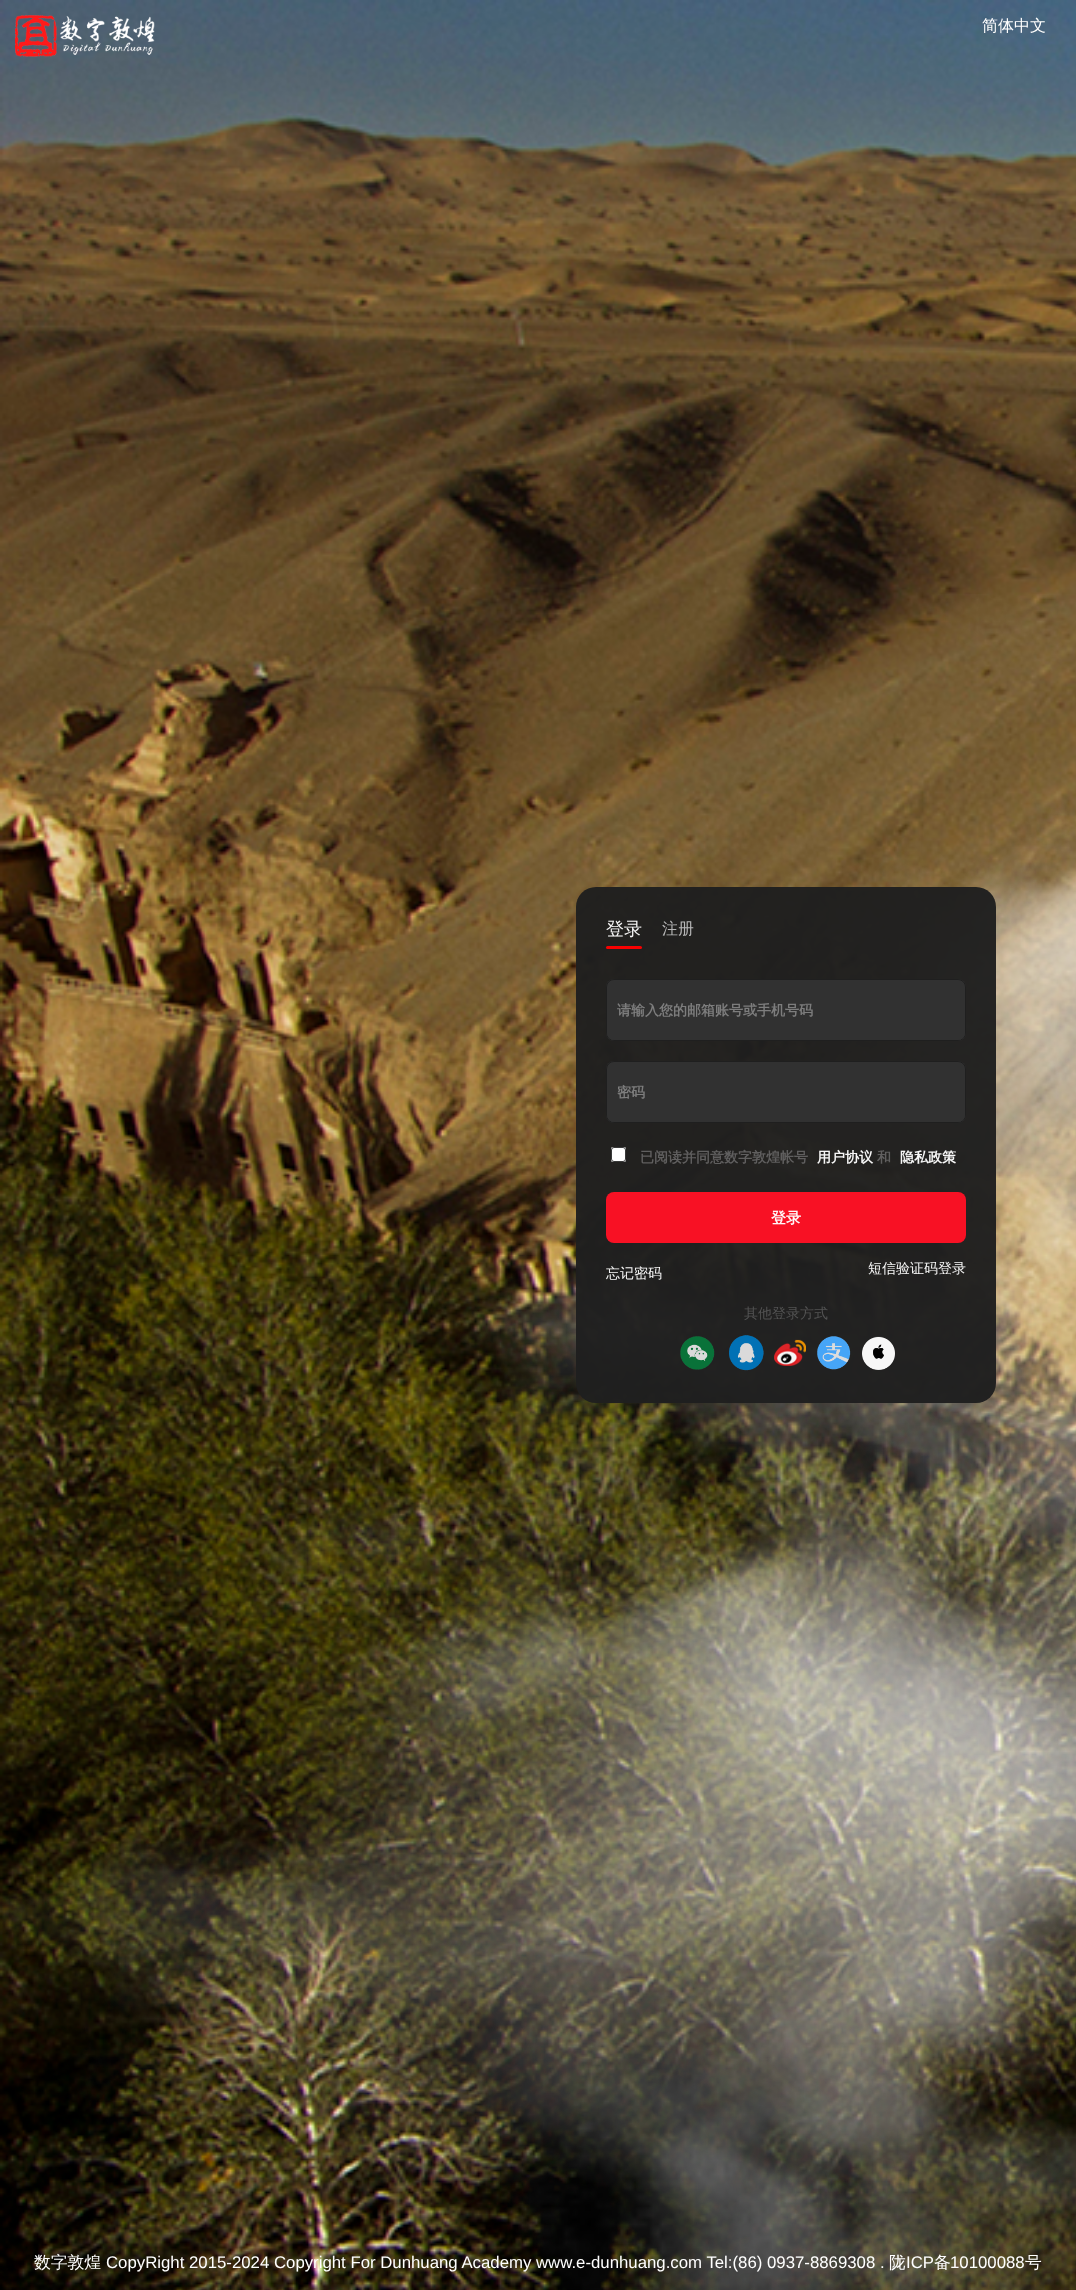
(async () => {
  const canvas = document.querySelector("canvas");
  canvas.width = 1076;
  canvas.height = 2290;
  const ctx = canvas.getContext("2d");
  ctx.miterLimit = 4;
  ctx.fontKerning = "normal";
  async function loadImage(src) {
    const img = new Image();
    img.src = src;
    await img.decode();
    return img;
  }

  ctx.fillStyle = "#ffffff";
  ctx.fillRect(0, 0, 1076, 2290);
  ctx.drawImage(await loadImage("img/2.png"), 0, 0, 1076, 2290);
  ctx.drawImage(await loadImage("img/1.png"), 15, 15, 140, 42);
  ctx.font = "500 16px WenQuanYi Zen Hei";
  ctx.fillText("简体中文", 982, 31);
  ctx.font = "500 16.8px WenQuanYi Zen Hei";
  ctx.fillText("数字敦煌", 34, 2268);
  ctx.font = "16.8px Liberation Sans";
  ctx.fillText("CopyRight 2015-2024 Copyright For Dunhuang Academy", 106, 2268);
  ctx.fillText("www.e-dunhuang.com Tel:(86) 0937-8869308 .", 536, 2268);
  ctx.font = "500 16.8px WenQuanYi Zen Hei";
  ctx.fillText("陇", 889, 2268);
  ctx.font = "16.8px Liberation Sans";
  ctx.fillText("ICP", 906, 2268);
  ctx.font = "500 16.8px WenQuanYi Zen Hei";
  ctx.fillText("备", 934, 2268);
  ctx.font = "16.8px Liberation Sans";
  ctx.fillText("10100088", 950, 2268);
  ctx.font = "500 16.8px WenQuanYi Zen Hei";
  ctx.fillText("号", 1025, 2268);
  ctx.drawImage(await loadImage("img/3.png"), 0, 594, 1076, 1696);
  ctx.fillStyle = "rgba(31, 31, 31, 0.97)";
  ctx.beginPath();
  ctx.roundRect(576, 887, 420, 516, 20);
  ctx.fill();
  ctx.fillStyle = "#f7f7f7";
  ctx.beginPath();
  ctx.roundRect(611, 1147, 15, 15, 2);
  ctx.fill();
  ctx.beginPath();
  ctx.roundRect(611.5, 1147.5, 14, 14, 1.5);
  ctx.strokeStyle = "rgba(118, 118, 118, 0.97)";
  ctx.stroke();
  ctx.fillStyle = "rgba(255, 255, 255, 0.97)";
  ctx.beginPath();
  ctx.roundRect(611, 1147, 15, 15, 3);
  ctx.fill();
  ctx.beginPath();
  ctx.roundRect(611.5, 1147.5, 14, 14, 2.5);
  ctx.strokeStyle = "rgba(51, 51, 51, 0.97)";
  ctx.stroke();
  ctx.fillStyle = "rgba(50, 50, 50, 0.97)";
  ctx.beginPath();
  ctx.roundRect(606, 1061, 360, 62, 8);
  ctx.fill();
  ctx.beginPath();
  ctx.roundRect(606.5, 1061.5, 359, 61, 7.5);
  ctx.strokeStyle = "rgba(31, 31, 31, 0.97)";
  ctx.stroke();
  ctx.beginPath();
  ctx.roundRect(607, 1082, 358, 40, [0, 0, 7, 7]);
  ctx.fill();
  ctx.font = "bold 14px WenQuanYi Zen Hei";
  ctx.fillStyle = "#7d7d7d";
  ctx.fillText("密码", 617, 1097);
  ctx.save();
  ctx.beginPath();
  ctx.roundRect(607, 1062, 358, 60, 7);
  ctx.clip();
  ctx.fillStyle = "rgba(50, 50, 50, 0.97)";
  ctx.fillRect(607, 1120, 358, 2);
  ctx.restore();
  ctx.fillStyle = "rgba(50, 50, 50, 0.97)";
  ctx.beginPath();
  ctx.roundRect(606, 979, 360, 62, 8);
  ctx.fill();
  ctx.beginPath();
  ctx.roundRect(606.5, 979.5, 359, 61, 7.5);
  ctx.stroke();
  ctx.beginPath();
  ctx.roundRect(607, 1000, 358, 40, [0, 0, 7, 7]);
  ctx.fill();
  ctx.fillStyle = "#7d7d7d";
  ctx.fillText("请输入您的邮箱账号或手机号码", 617, 1015);
  ctx.save();
  ctx.beginPath();
  ctx.roundRect(607, 980, 358, 60, 7);
  ctx.clip();
  ctx.fillStyle = "rgba(50, 50, 50, 0.97)";
  ctx.fillRect(607, 1038, 358, 2);
  ctx.restore();
  ctx.drawImage(await loadImage("img/8.png"), 862, 1336, 33, 34);
  ctx.drawImage(await loadImage("img/7.png"), 817, 1336, 34, 34);
  ctx.drawImage(await loadImage("img/6.png"), 774, 1339, 32, 27);
  ctx.drawImage(await loadImage("img/5.png"), 729, 1335, 35, 36);
  ctx.drawImage(await loadImage("img/4.png"), 680, 1336, 35, 34);
  ctx.font = "500 14px WenQuanYi Zen Hei";
  ctx.fillStyle = "#535353";
  ctx.fillText("其他登录方式", 744, 1318);
  ctx.fillStyle = "#f7f7f7";
  ctx.fillText("短信验证码登录", 868, 1273);
  ctx.fillText("忘记密码", 606, 1278);
  ctx.fillStyle = "rgba(255, 17, 36, 0.97)";
  ctx.beginPath();
  ctx.roundRect(606, 1192, 360, 51, 8);
  ctx.fill();
  ctx.font = "bold 15px WenQuanYi Zen Hei";
  ctx.fillStyle = "#fff7f8";
  ctx.fillText("登录", 771, 1223);
  ctx.font = "bold 14px WenQuanYi Zen Hei";
  ctx.fillStyle = "#f7f7f7";
  ctx.fillText("隐私政策", 900, 1162);
  ctx.fillStyle = "#605f5f";
  ctx.fillText("和", 877, 1162);
  ctx.fillStyle = "#f7f7f7";
  ctx.fillText("用户协议", 817, 1162);
  ctx.fillStyle = "#605f5f";
  ctx.fillText("已阅读并同意数字敦煌帐号", 640, 1162);
  ctx.font = "500 16px WenQuanYi Zen Hei";
  ctx.fillStyle = "#b6b6b6";
  ctx.fillText("注册", 662, 934);
  ctx.font = "500 18px WenQuanYi Zen Hei";
  ctx.fillStyle = "#f7f7f7";
  ctx.fillText("登录", 606, 935);
  ctx.fillStyle = "#f70101";
  ctx.beginPath();
  ctx.roundRect(606, 946, 36, 3, 1.5);
  ctx.fill();
})();
